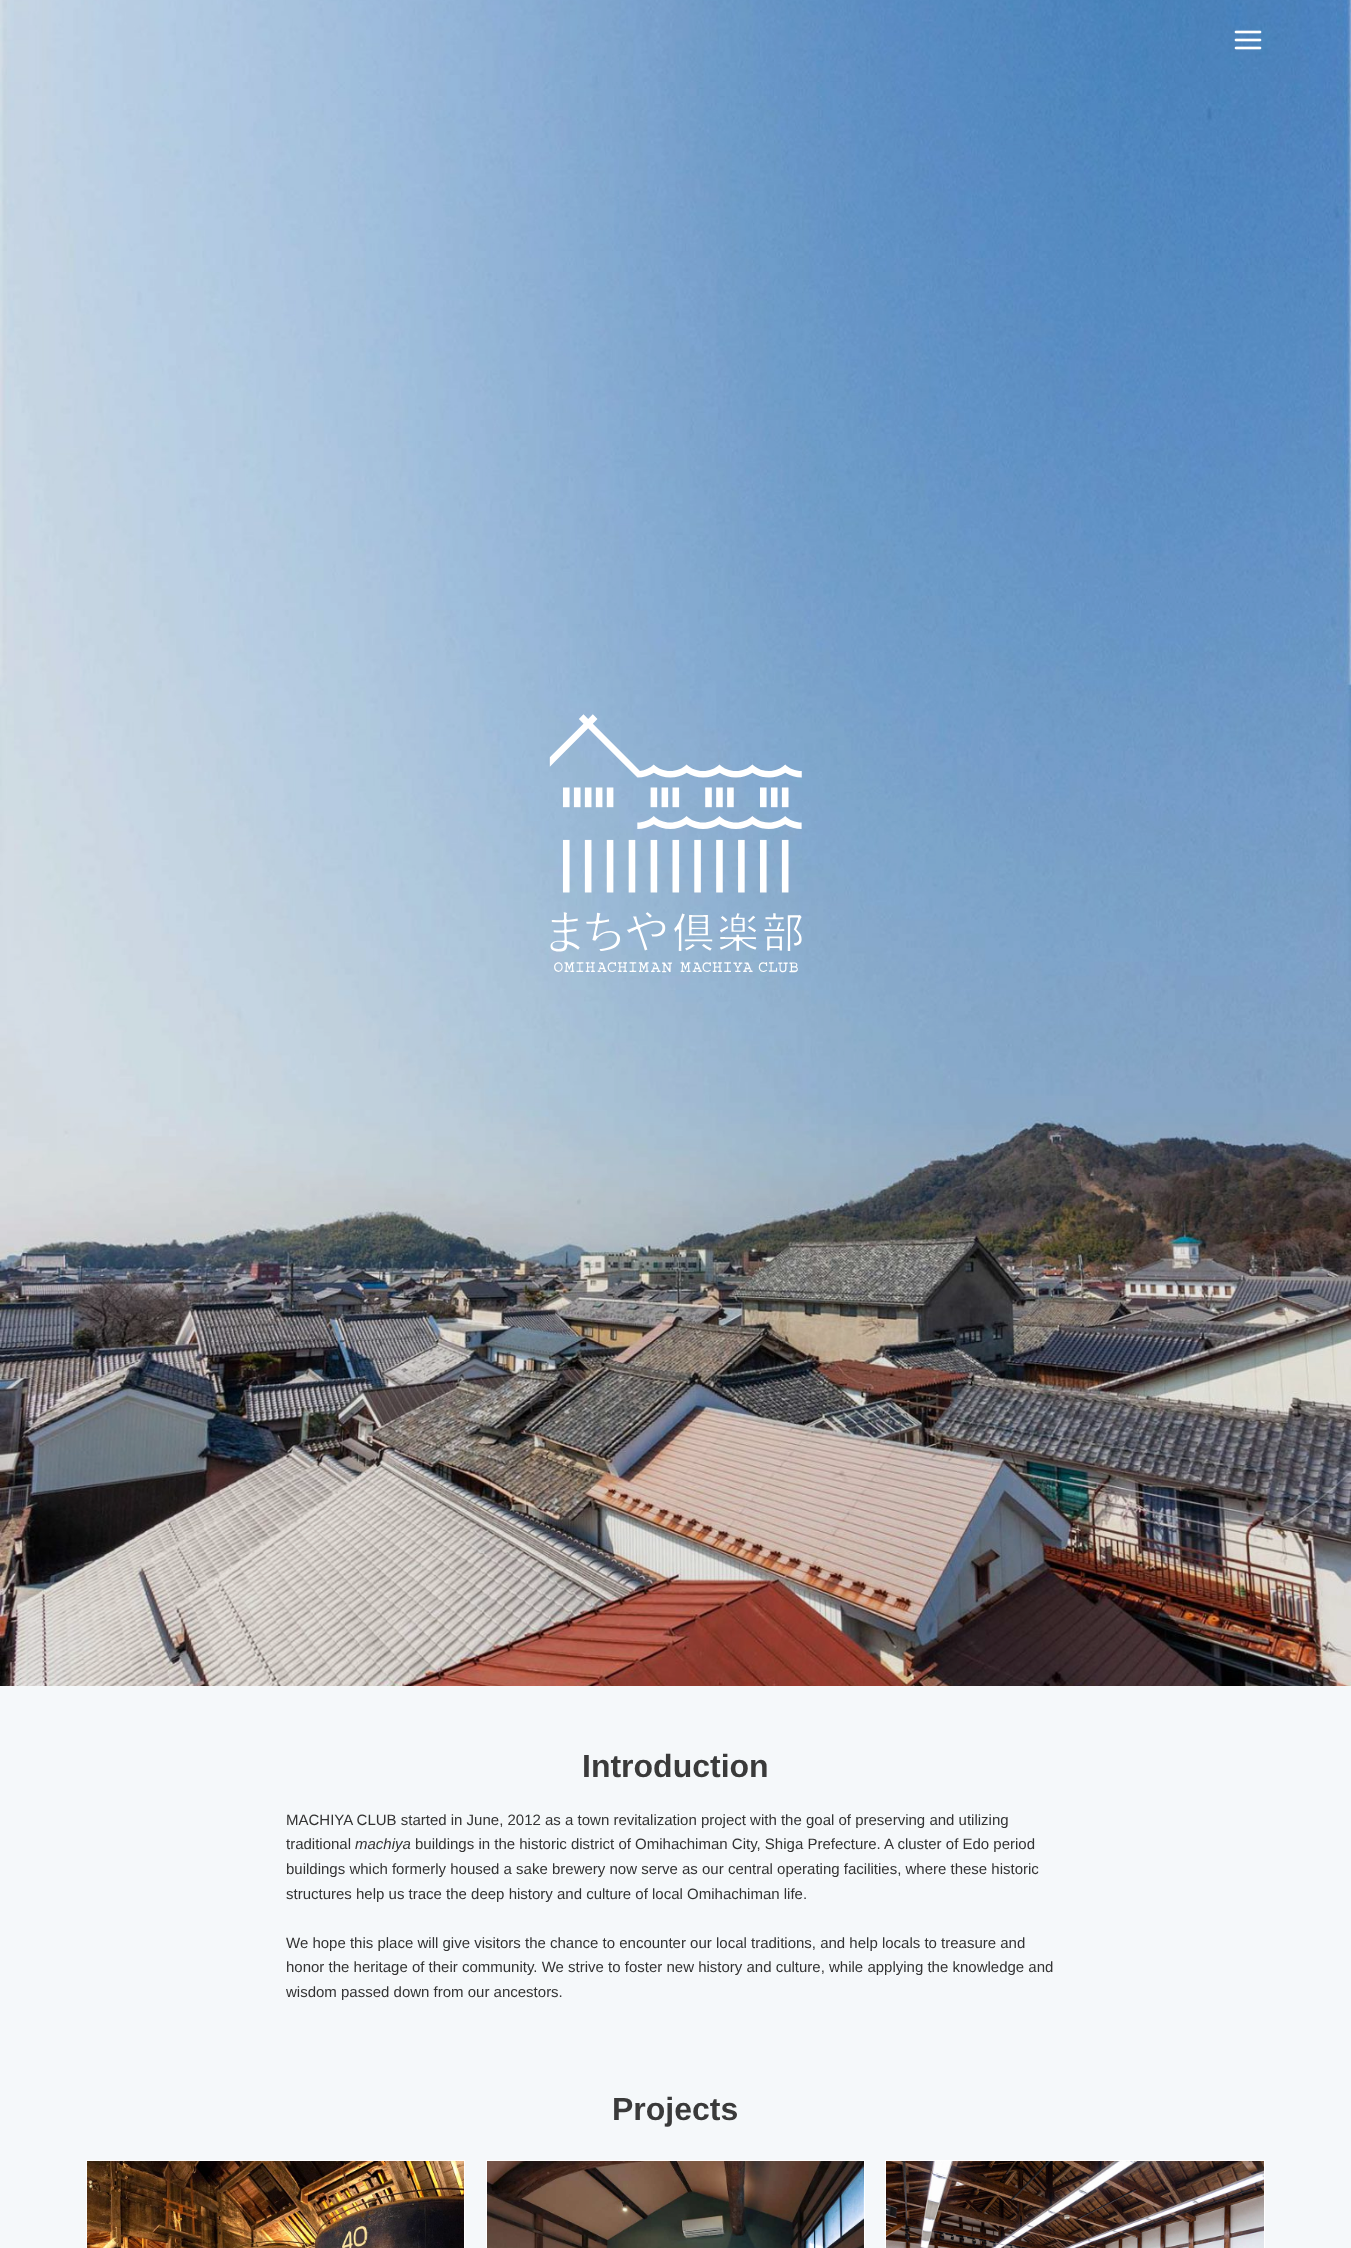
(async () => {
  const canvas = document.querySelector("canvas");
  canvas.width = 1351;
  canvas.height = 2248;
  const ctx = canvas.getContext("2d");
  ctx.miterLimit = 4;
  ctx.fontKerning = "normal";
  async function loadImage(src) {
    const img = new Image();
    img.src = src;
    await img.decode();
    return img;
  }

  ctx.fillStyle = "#f5f8fa";
  ctx.fillRect(0, 0, 1351, 2248);
  ctx.drawImage(await loadImage("img/2.png"), 0, 0, 1351, 1686);
  ctx.drawImage(await loadImage("img/1.png"), 1234, 30, 28, 20);
  ctx.drawImage(await loadImage("img/3.png"), 549, 714, 253, 259);
  ctx.strokeStyle = "#ffffff";
  ctx.strokeRect(86.5, 2160.5, 378, 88);
  ctx.drawImage(await loadImage("img/4.png"), 87, 2161, 377, 87);
  ctx.strokeRect(486.5, 2160.5, 378, 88);
  ctx.drawImage(await loadImage("img/5.png"), 487, 2161, 377, 87);
  ctx.strokeRect(885.5, 2160.5, 379, 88);
  ctx.drawImage(await loadImage("img/6.png"), 886, 2161, 378, 87);
  ctx.font = "bold 32px Liberation Sans";
  ctx.fillStyle = "#3a3a3a";
  ctx.fillText("Introduction", 582, 1777);
  ctx.font = "15px Liberation Sans";
  ctx.fillStyle = "#333333";
  ctx.fillText("MACHIYA CLUB started in June, 2012 as a town revitalization project with the goal of preserving and utilizing", 286, 1825);
  ctx.fillText("traditional", 286, 1849);
  ctx.font = "italic 15px Liberation Sans";
  ctx.fillText("machiya", 355, 1849);
  ctx.font = "15px Liberation Sans";
  for (const [text, x, y] of [
    ["buildings in the historic district of Omihachiman City, Shiga Prefecture. A cluster of Edo period", 415, 1849],
    ["buildings which formerly housed a sake brewery now serve as our central operating facilities, where these historic", 286, 1874],
    ["structures help us trace the deep history and culture of local Omihachiman life.", 286, 1899],
    ["We hope this place will give visitors the chance to encounter our local traditions, and help locals to treasure and", 286, 1948],
    ["honor the heritage of their community. We strive to foster new history and culture, while applying the knowledge and", 286, 1972],
    ["wisdom passed down from our ancestors.", 286, 1997],
  ]) {
    ctx.fillText(text, x, y);
  }
  ctx.font = "bold 32px Liberation Sans";
  ctx.fillStyle = "#3a3a3a";
  ctx.fillText("Projects", 612, 2120);
})();
